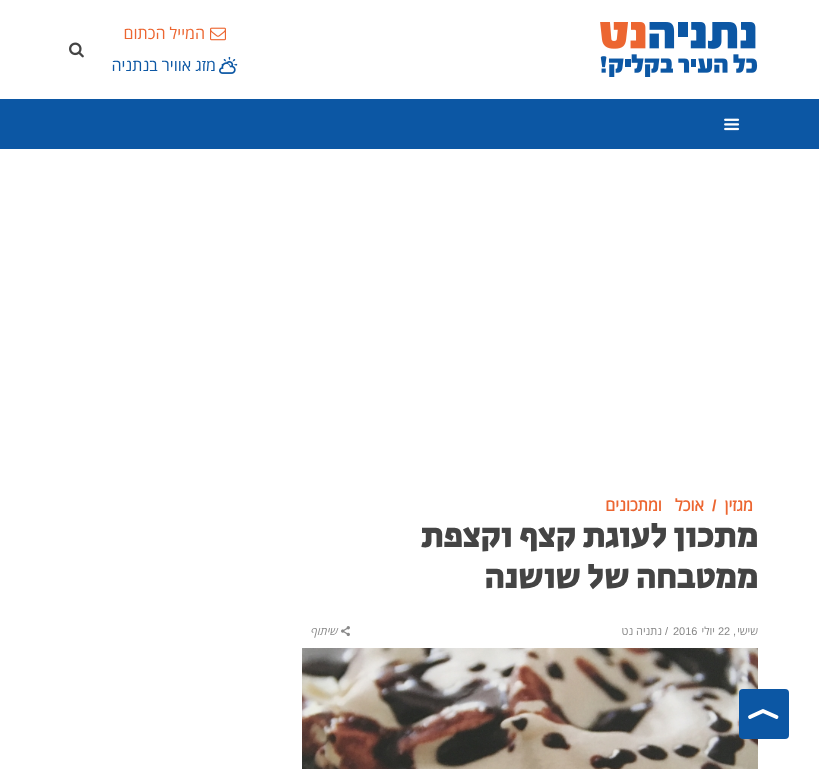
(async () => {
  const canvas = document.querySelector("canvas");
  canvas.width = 819;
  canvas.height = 769;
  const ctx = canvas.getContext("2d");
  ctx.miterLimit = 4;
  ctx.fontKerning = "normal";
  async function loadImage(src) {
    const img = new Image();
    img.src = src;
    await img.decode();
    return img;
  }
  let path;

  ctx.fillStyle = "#ffffff";
  ctx.fillRect(0, 0, 819, 769);
  ctx.drawImage(await loadImage("img/1.png"), 600, 22, 158, 55);
  ctx.drawImage(await loadImage("img/2.png"), 210, 27, 16, 14);
  ctx.drawImage(await loadImage("img/3.png"), 219, 56, 19, 18);
  ctx.drawImage(await loadImage("img/4.png"), 69, 42, 15, 16);
  ctx.fillStyle = "#0c57a4";
  ctx.fillRect(0, 99, 819, 50);
  ctx.drawImage(await loadImage("img/5.png"), 724, 118, 16, 13);
  ctx.drawImage(await loadImage("img/6.png"), 341, 626, 9, 11);
  ctx.drawImage(await loadImage("img/7.png"), 302, 648, 456, 121);
  ctx.beginPath();
  ctx.roundRect(739, 689, 50, 50, 4);
  ctx.fill();
  path = new Path2D("M776.5 717L763 711L750 717");
  ctx.strokeStyle = "#ffffff";
  ctx.lineWidth = 3.8;
  ctx.lineCap = "round";
  ctx.lineJoin = "round";
  ctx.stroke(path);
  ctx.direction = "rtl";
  ctx.font = "16px Open Sans";
  ctx.fillStyle = "#ec6631";
  ctx.fillText("המייל הכתום", 205, 39);
  ctx.fillStyle = "#0c57a4";
  ctx.fillText("מזג אוויר בנתניה", 216, 71);
  ctx.font = "bold 16px Open Sans";
  ctx.fillStyle = "#ec6631";
  ctx.fillText("מגזין", 753, 511);
  ctx.direction = "ltr";
  ctx.font = "bold 16px Liberation Sans";
  ctx.fillText("/", 712, 511);
  ctx.wordSpacing = "9px";
  ctx.direction = "rtl";
  ctx.font = "bold 16px Open Sans";
  ctx.fillText("אוכל ומתכונים", 704, 511);
  ctx.wordSpacing = "0px";
  ctx.font = "bold 34.25px Secular One";
  ctx.fillStyle = "#444444";
  ctx.fillText("מתכון לעוגת קצף וקצפת", 758, 547);
  ctx.fillText("ממטבחה של שושנה", 758, 588);
  ctx.font = "11px Open Sans";
  ctx.fillStyle = "#888888";
  ctx.fillText("שישי", 758, 635);
  ctx.font = "11px Liberation Sans";
  ctx.fillText(",", 736, 635);
  ctx.direction = "ltr";
  ctx.fillText("22", 718, 635);
  ctx.direction = "rtl";
  ctx.font = "11px Open Sans";
  ctx.fillText("יולי", 715, 635);
  ctx.direction = "ltr";
  ctx.font = "11px Liberation Sans";
  ctx.fillText("2016", 673, 635);
  ctx.fillText("/", 665, 635);
  ctx.direction = "rtl";
  ctx.font = "11px Open Sans";
  ctx.fillText("נתניה נט", 662, 635);
  ctx.font = "italic 11px Open Sans";
  ctx.fillText("שיתוף", 337, 635);
})();
